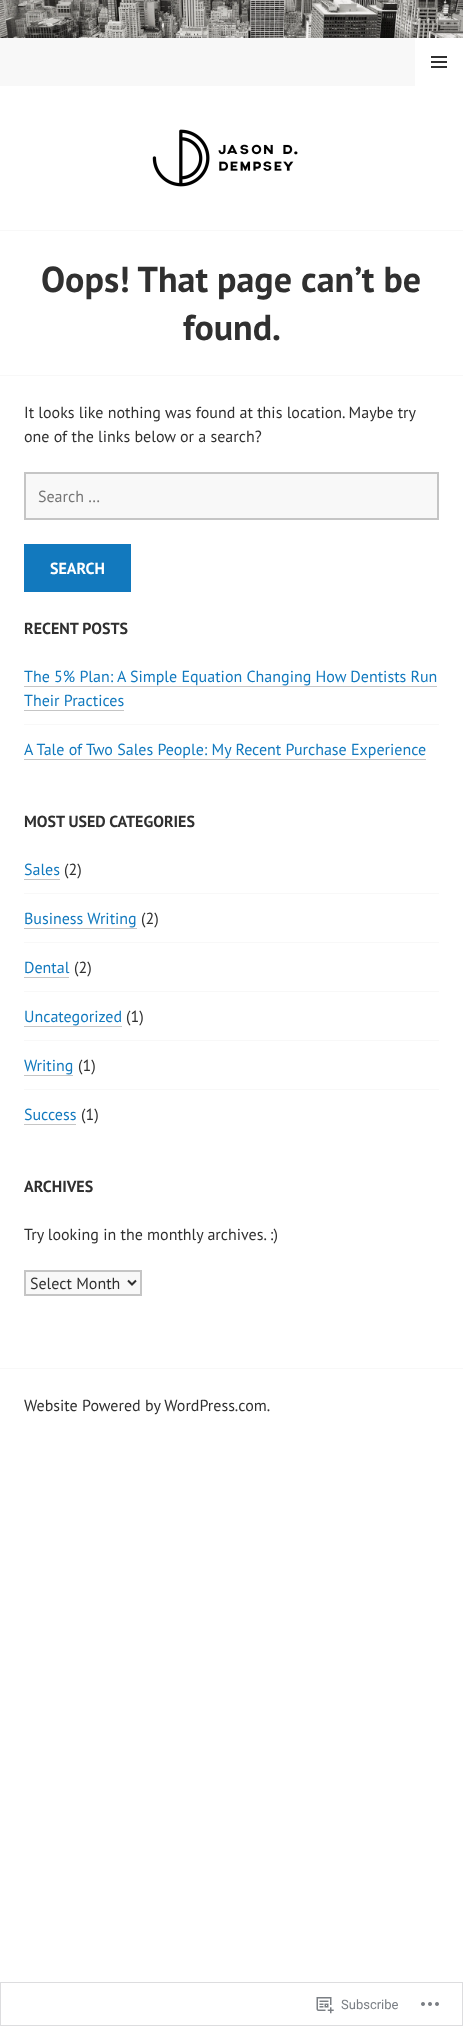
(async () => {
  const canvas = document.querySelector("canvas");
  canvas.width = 463;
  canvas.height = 2026;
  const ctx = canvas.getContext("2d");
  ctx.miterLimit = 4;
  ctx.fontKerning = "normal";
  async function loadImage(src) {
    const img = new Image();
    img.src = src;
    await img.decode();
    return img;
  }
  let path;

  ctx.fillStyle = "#ffffff";
  ctx.fillRect(0, 0, 463, 2026);
  ctx.fillStyle = "#f8f8f8";
  ctx.fillRect(0, 230, 463, 1);
  ctx.drawImage(await loadImage("img/1.png"), 0, 0, 463, 38);
  ctx.fillRect(0, 38, 415, 48);
  ctx.drawImage(await loadImage("img/2.png"), 431, 56, 16, 12);
  ctx.drawImage(await loadImage("img/3.png"), 152, 129, 146, 58);
  ctx.fillRect(0, 375, 463, 1);
  ctx.beginPath();
  ctx.rect(25, 473, 413, 46);
  ctx.fill();
  ctx.strokeStyle = "#c5c5c5";
  ctx.lineWidth = 2;
  ctx.stroke();
  for (const [x, y, w, h, color] of [
    [24, 544, 107, 48, "#1279be"],
    [24, 686, 413, 1, "#c5c5c5"],
    [24, 710, 100, 1, "#c5c5c5"],
    [24, 724, 415, 1, "#f8f8f8"],
    [24, 759, 402, 1, "#c5c5c5"],
    [24, 879, 36, 1, "#c5c5c5"],
    [24, 893, 415, 1, "#f8f8f8"],
    [24, 928, 113, 1, "#c5c5c5"],
    [24, 942, 415, 1, "#f8f8f8"],
    [24, 977, 45, 1, "#c5c5c5"],
    [24, 991, 415, 1, "#f8f8f8"],
    [24, 1026, 98, 1, "#c5c5c5"],
    [24, 1040, 415, 1, "#f8f8f8"],
    [24, 1075, 49, 1, "#c5c5c5"],
    [24, 1089, 415, 1, "#f8f8f8"],
    [24, 1124, 52, 1, "#c5c5c5"],
  ]) {
    ctx.fillStyle = color;
    ctx.fillRect(x, y, w, h);
  }
  ctx.fillStyle = "#f8f8f8";
  ctx.beginPath();
  ctx.rect(25, 1271, 116, 24);
  ctx.fill();
  ctx.stroke();
  path = new Path2D("M128 1280.5L132 1284.5L136 1280.5");
  ctx.strokeStyle = "#303030";
  ctx.stroke(path);
  ctx.fillRect(0, 1368, 463, 1);
  ctx.strokeStyle = "#dddddf";
  ctx.lineWidth = 1;
  ctx.strokeRect(0.5, 1982.5, 462, 43);
  ctx.drawImage(await loadImage("img/4.png"), 316, 1997, 18, 17);
  ctx.drawImage(await loadImage("img/5.png"), 421, 2002, 18, 4);
  ctx.font = "bold 36px PT Sans";
  ctx.fillStyle = "#303030";
  ctx.fillText("Oops! That page can’t be", 41, 292);
  ctx.fillText("found.", 183, 340);
  ctx.font = "16px PT Sans";
  ctx.fillText("It looks like nothing was found at this location. Maybe try", 24, 418);
  ctx.fillText("one of the links below or a search?", 24, 442);
  ctx.fillStyle = "#757575";
  ctx.fillText("Search …", 38, 502);
  ctx.font = "bold 16px PT Sans";
  ctx.fillStyle = "#ffffff";
  ctx.fillText("SEARCH", 50, 574);
  ctx.fillStyle = "#303030";
  ctx.fillText("RECENT POSTS", 24, 634);
  ctx.font = "16px PT Sans";
  ctx.fillStyle = "#1279be";
  for (const [text, x, y] of [
    ["The 5% Plan: A Simple Equation Changing How Dentists Run", 24, 682],
    ["Their Practices", 24, 706],
    ["A Tale of Two Sales People: My Recent Purchase Experience", 24, 755],
  ]) {
    ctx.fillText(text, x, y);
  }
  ctx.font = "bold 16px PT Sans";
  ctx.fillStyle = "#303030";
  ctx.fillText("MOST USED CATEGORIES", 24, 827);
  ctx.font = "16px PT Sans";
  ctx.fillStyle = "#1279be";
  ctx.fillText("Sales", 24, 875);
  ctx.fillStyle = "#303030";
  ctx.fillText("(2)", 64, 875);
  ctx.fillStyle = "#1279be";
  ctx.fillText("Business Writing", 24, 924);
  ctx.fillStyle = "#303030";
  ctx.fillText("(2)", 141, 924);
  ctx.fillStyle = "#1279be";
  ctx.fillText("Dental", 24, 973);
  ctx.fillStyle = "#303030";
  ctx.fillText("(2)", 74, 973);
  ctx.fillStyle = "#1279be";
  ctx.fillText("Uncategorized", 24, 1022);
  ctx.fillStyle = "#303030";
  ctx.fillText("(1)", 126, 1022);
  ctx.fillStyle = "#1279be";
  ctx.fillText("Writing", 24, 1071);
  ctx.fillStyle = "#303030";
  ctx.fillText("(1)", 78, 1071);
  ctx.fillStyle = "#1279be";
  ctx.fillText("Success", 24, 1120);
  ctx.fillStyle = "#303030";
  ctx.fillText("(1)", 81, 1120);
  ctx.font = "bold 16px PT Sans";
  ctx.fillText("ARCHIVES", 24, 1192);
  ctx.font = "16px PT Sans";
  for (const [text, x, y] of [
    ["Try looking in the monthly archives. :)", 24, 1240],
    ["Select Month", 30, 1289],
    ["Website Powered by WordPress.com.", 24, 1411],
  ]) {
    ctx.fillText(text, x, y);
  }
  ctx.font = "13px Roboto";
  ctx.fillStyle = "#7b7f85";
  ctx.fillText("Subscribe", 341, 2009);
})();
